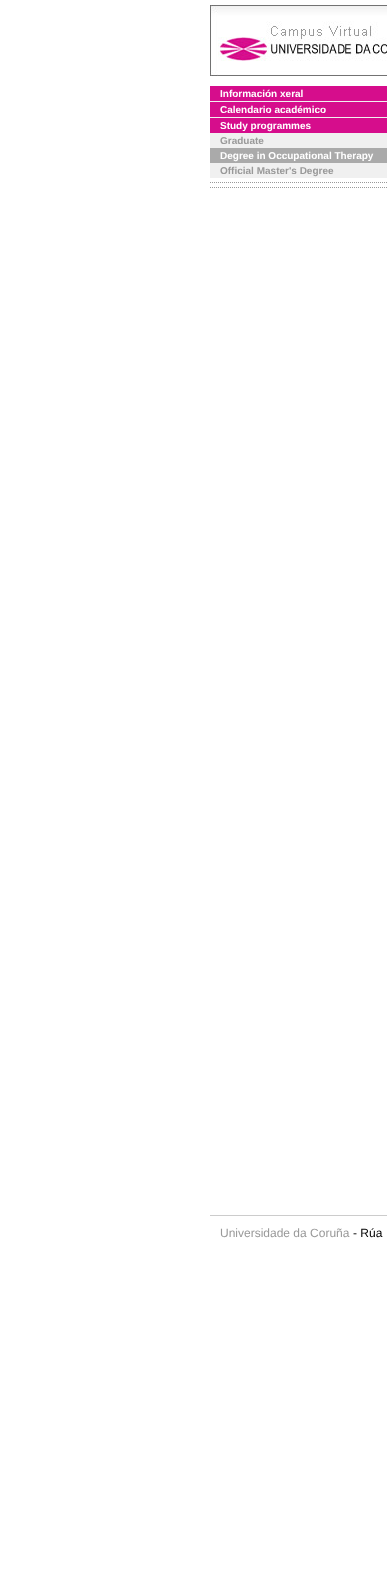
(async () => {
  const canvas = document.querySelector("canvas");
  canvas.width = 387;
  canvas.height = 1595;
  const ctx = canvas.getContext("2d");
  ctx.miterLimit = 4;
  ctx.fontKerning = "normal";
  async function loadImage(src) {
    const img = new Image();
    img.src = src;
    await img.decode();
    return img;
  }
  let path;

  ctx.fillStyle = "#ffffff";
  ctx.fillRect(0, 0, 387, 1595);
  ctx.drawImage(await loadImage("img/1.png"), 210, 5, 177, 71);
  for (const [x, y, w, h, color] of [
    [210, 101, 177, 77, "#f0f0f0"],
    [210, 86, 177, 15, "#d60d8c"],
    [210, 102, 177, 15, "#d60d8c"],
    [210, 118, 177, 15, "#d60d8c"],
    [210, 148, 177, 15, "#aaaaaa"],
  ]) {
    ctx.fillStyle = color;
    ctx.fillRect(x, y, w, h);
  }
  path = new Path2D("M210 182.5H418");
  ctx.strokeStyle = "#999999";
  ctx.setLineDash([1, 1]);
  ctx.stroke(path);
  path = new Path2D("M210 187.5H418");
  ctx.stroke(path);
  ctx.fillStyle = "#cccccc";
  ctx.fillRect(210, 1215, 177, 1);
  ctx.font = "bold 10px Liberation Sans";
  ctx.fillStyle = "#ffffff";
  for (const [text, x, y] of [
    ["Información xeral", 220, 97],
    ["Calendario académico", 220, 113],
    ["Study programmes", 220, 129],
  ]) {
    ctx.fillText(text, x, y);
  }
  ctx.fillStyle = "#999999";
  ctx.fillText("Graduate", 220, 144);
  ctx.fillStyle = "#ffffff";
  ctx.fillText("Degree in Occupational Therapy", 220, 159);
  ctx.fillStyle = "#999999";
  ctx.fillText("Official Master's Degree", 220, 174);
  ctx.font = "12px Liberation Sans";
  ctx.fillText("Universidade da Coruña", 220, 1237);
  ctx.fillStyle = "#000000";
  ctx.fillText("- Rúa", 353, 1237);
})();
